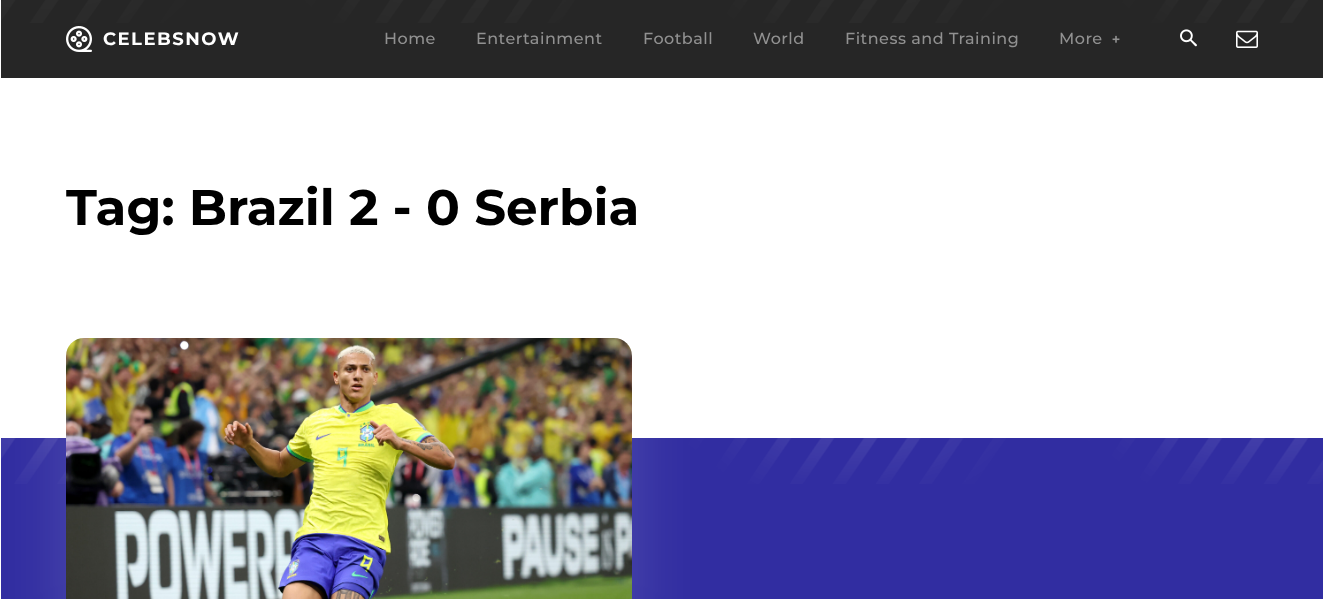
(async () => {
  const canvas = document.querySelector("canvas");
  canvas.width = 1323;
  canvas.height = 599;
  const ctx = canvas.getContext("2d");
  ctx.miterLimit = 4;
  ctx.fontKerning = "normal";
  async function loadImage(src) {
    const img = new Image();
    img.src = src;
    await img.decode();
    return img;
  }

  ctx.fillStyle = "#ffffff";
  ctx.fillRect(0, 0, 1323, 599);
  ctx.fillStyle = "#262626";
  ctx.fillRect(1, 0, 1322, 78);
  ctx.drawImage(await loadImage("img/1.png"), 1, 0, 1307, 23);
  ctx.drawImage(await loadImage("img/2.png"), 66, 26, 26, 26);
  ctx.drawImage(await loadImage("img/3.png"), 1112, 35, 8, 8);
  ctx.drawImage(await loadImage("img/4.png"), 1180, 29, 17, 18);
  ctx.drawImage(await loadImage("img/5.png"), 1236, 30, 22, 18);
  ctx.fillStyle = "#312da1";
  ctx.fillRect(1, 438, 1322, 161);
  ctx.drawImage(await loadImage("img/7.png"), 1, 438, 1322, 46);
  ctx.fillStyle = "rgba(255, 255, 255, 0.15)";
  ctx.filter = "blur(35px)";
  ctx.beginPath();
  ctx.roundRect(66, 338, 566, 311, 18);
  ctx.fill();
  ctx.filter = "none";
  ctx.drawImage(await loadImage("img/6.png"), 66, 338, 566, 261);
  ctx.letterSpacing = "1.5px";
  ctx.font = "bold 18px Montserrat";
  ctx.fillStyle = "#ffffff";
  ctx.fillText("CELEBSNOW", 103, 45);
  ctx.letterSpacing = "0.5px";
  ctx.font = "500 16px Montserrat";
  ctx.fillStyle = "#919191";
  for (const [text, x, y] of [
    ["Home", 384, 44],
    ["Entertainment", 476, 44],
    ["Football", 643, 44],
    ["World", 753, 44],
    ["Fitness and Training", 845, 44],
    ["More", 1059, 44],
  ]) {
    ctx.fillText(text, x, y);
  }
  ctx.letterSpacing = "0px";
  ctx.font = "bold 50px Montserrat";
  ctx.fillStyle = "#000000";
  ctx.fillText("Tag: Brazil 2 - 0 Serbia", 66, 225);
})();
